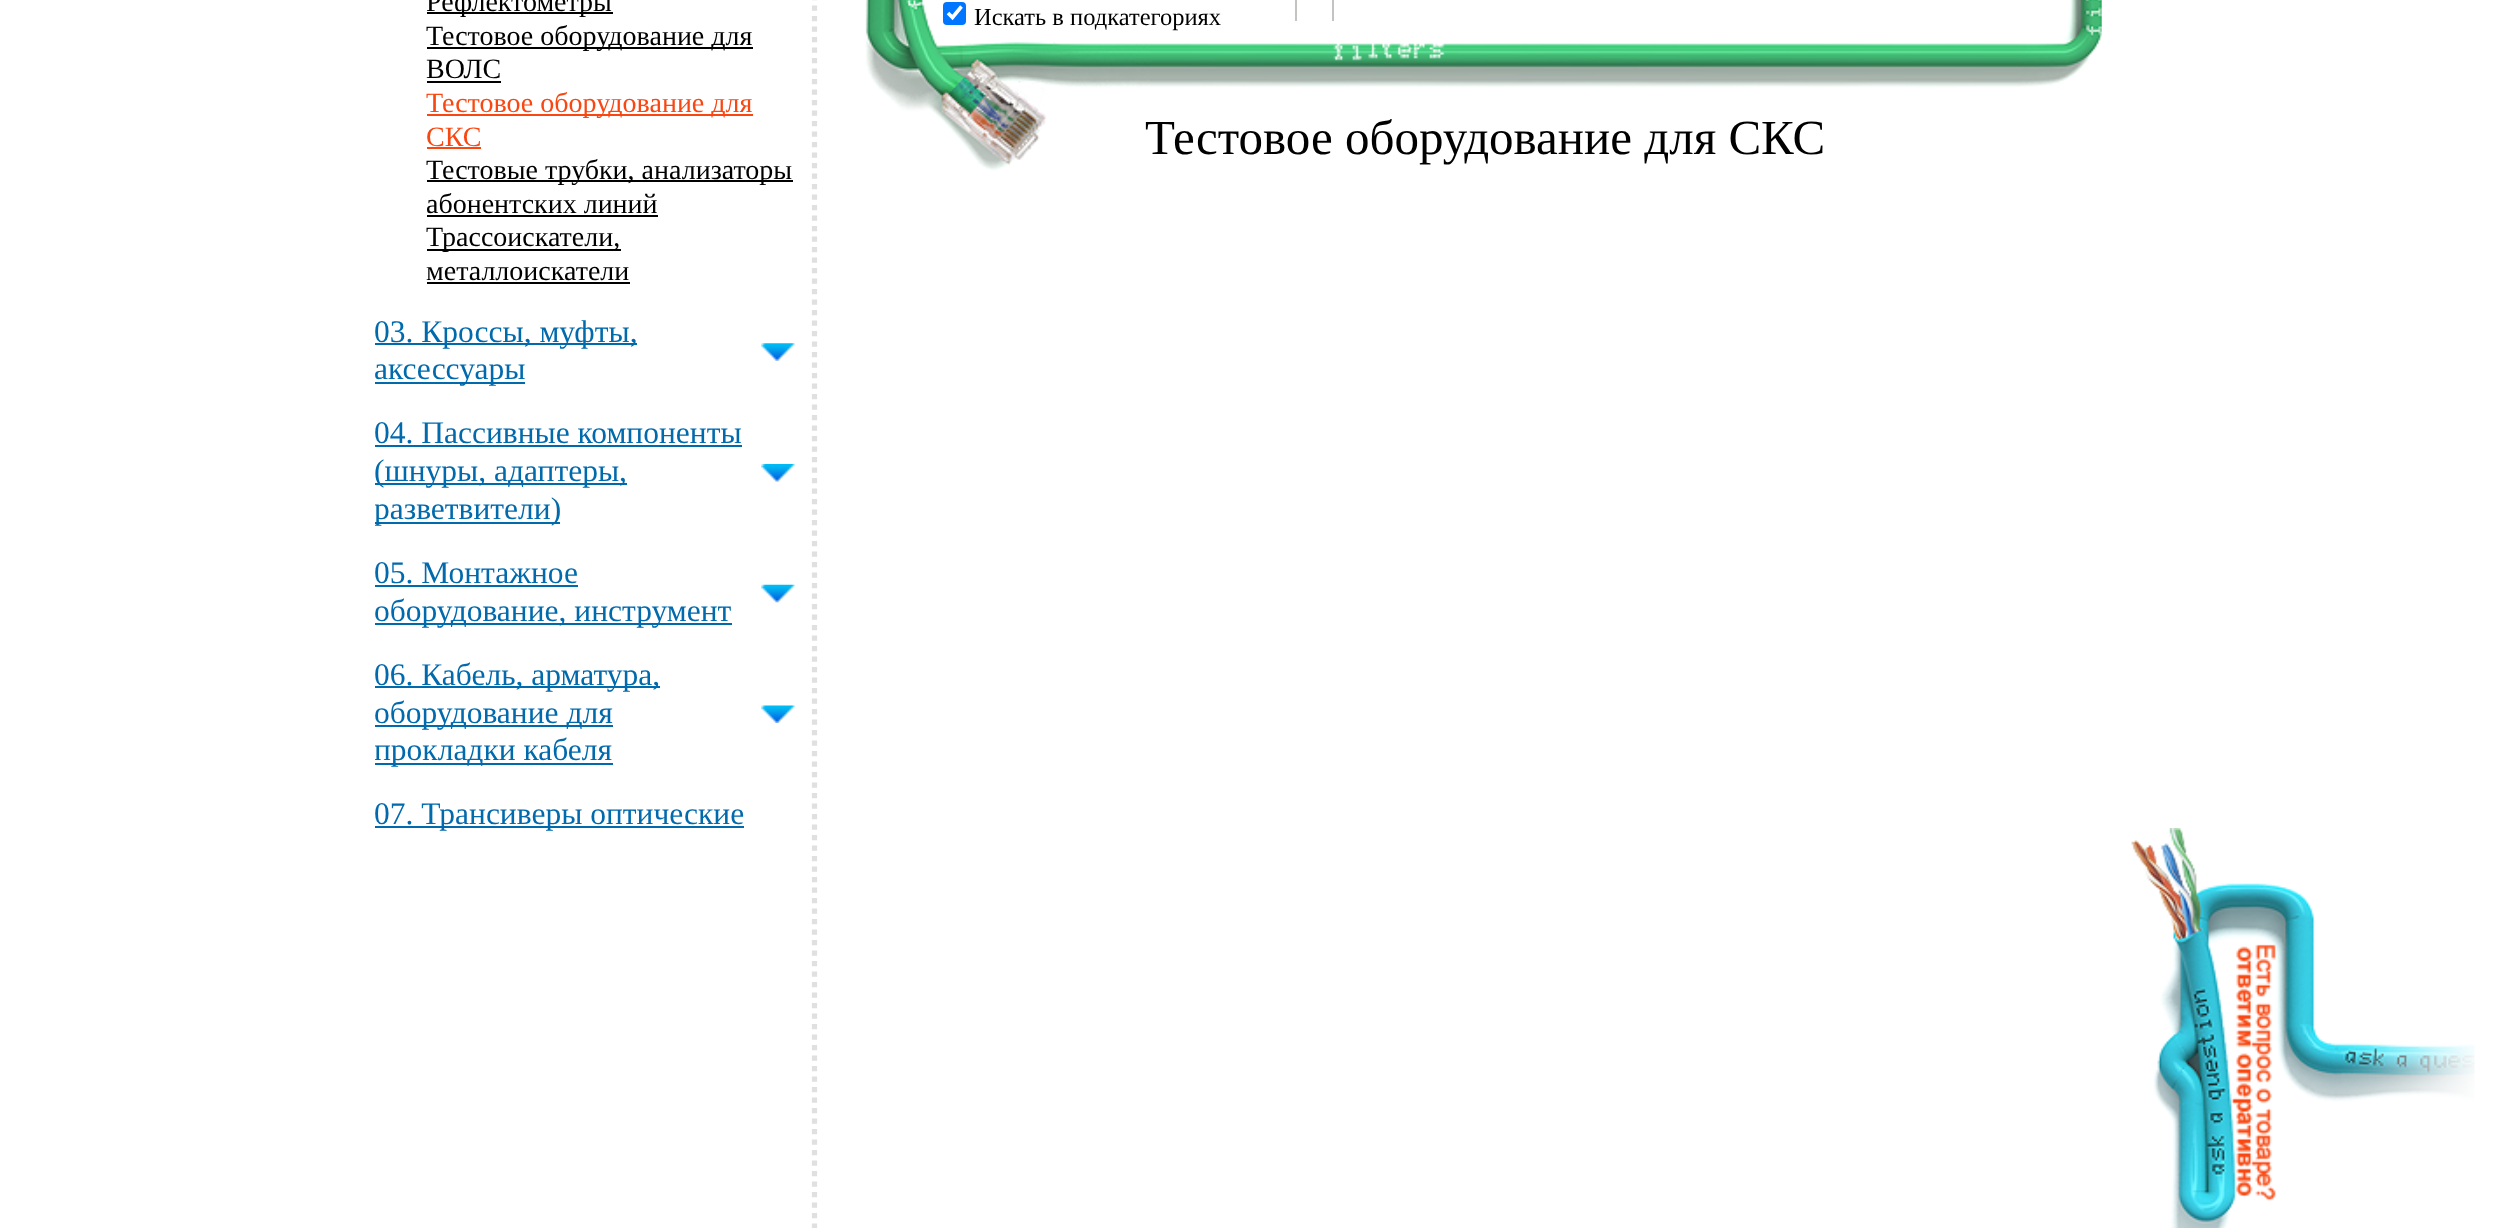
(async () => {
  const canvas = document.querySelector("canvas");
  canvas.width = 2496;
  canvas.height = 1228;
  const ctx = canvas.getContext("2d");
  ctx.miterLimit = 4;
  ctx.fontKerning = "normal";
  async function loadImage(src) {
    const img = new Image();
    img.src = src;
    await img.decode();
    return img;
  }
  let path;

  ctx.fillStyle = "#ffffff";
  ctx.fillRect(0, 0, 2496, 1228);
  path = new Path2D("M814.5-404V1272");
  ctx.strokeStyle = "#e0e0e0";
  ctx.lineWidth = 5.2;
  ctx.setLineDash([5.25, 5.25]);
  ctx.stroke(path);
  for (const [x, y, w, h, color] of [
    [427, 12, 186, 2, "#000000"],
    [427, 47, 326, 2, "#000000"],
    [427, 81, 74, 2, "#000000"],
    [427, 114, 326, 2, "#f94711"],
    [427, 147, 54, 2, "#f94711"],
    [427, 180, 366, 2, "#000000"],
    [427, 215, 231, 2, "#000000"],
    [427, 249, 194, 2, "#000000"],
    [427, 282, 203, 2, "#000000"],
    [375, 343, 262, 2, "#006aad"],
    [375, 382, 150, 2, "#006aad"],
  ]) {
    ctx.fillStyle = color;
    ctx.fillRect(x, y, w, h);
  }
  ctx.drawImage(await loadImage("img/1.png"), 761, 343, 34, 18);
  for (const [x, y, w, h, color] of [
    [375, 445, 367, 2, "#006aad"],
    [375, 483, 252, 2, "#006aad"],
    [375, 522, 185, 2, "#006aad"],
  ]) {
    ctx.fillStyle = color;
    ctx.fillRect(x, y, w, h);
  }
  ctx.drawImage(await loadImage("img/2.png"), 761, 464, 34, 18);
  ctx.fillRect(375, 585, 203, 2);
  ctx.fillRect(375, 623, 357, 2);
  ctx.drawImage(await loadImage("img/3.png"), 761, 584, 34, 19);
  for (const [x, y, w, h, color] of [
    [375, 686, 285, 2, "#006aad"],
    [375, 725, 238, 2, "#006aad"],
    [375, 763, 238, 2, "#006aad"],
  ]) {
    ctx.fillStyle = color;
    ctx.fillRect(x, y, w, h);
  }
  ctx.drawImage(await loadImage("img/4.png"), 761, 705, 34, 18);
  ctx.fillRect(375, 826, 369, 2);
  ctx.drawImage(await loadImage("img/5.png"), 865, 0, 1237, 171);
  ctx.fillStyle = "#0075ff";
  ctx.beginPath();
  ctx.roundRect(943, 2, 23, 23, 4);
  ctx.fill();
  path = new Path2D("M948 13L952.5 17.5L961.5 6.5");
  ctx.strokeStyle = "#ffffff";
  ctx.lineWidth = 3.6;
  ctx.setLineDash([]);
  ctx.stroke(path);
  ctx.fillStyle = "#c3c3c2";
  ctx.fillRect(1295, 0, 2, 21);
  ctx.fillRect(1332, 0, 2, 21);
  ctx.drawImage(await loadImage("img/6.png"), 2131, 828, 344, 400);
  ctx.font = "28px Liberation Serif";
  ctx.fillStyle = "#000000";
  for (const [text, x, y] of [
    ["Рефлектометры", 426, 11],
    ["Тестовое оборудование для", 426, 45],
    ["ВОЛС", 426, 78],
  ]) {
    ctx.fillText(text, x, y);
  }
  ctx.fillStyle = "#f94711";
  ctx.fillText("Тестовое оборудование для", 426, 112);
  ctx.fillText("СКС", 426, 146);
  ctx.fillStyle = "#000000";
  for (const [text, x, y] of [
    ["Тестовые трубки, анализаторы", 426, 179],
    ["абонентских линий", 426, 213],
    ["Трассоискатели,", 426, 246],
    ["металлоискатели", 426, 280],
  ]) {
    ctx.fillText(text, x, y);
  }
  ctx.save();
  ctx.beginPath();
  ctx.rect(375, 313, 437, 76);
  ctx.clip();
  ctx.font = "31.5px Liberation Serif";
  ctx.fillStyle = "#006aad";
  ctx.fillText("03. Кроссы, муфты,", 374, 342);
  ctx.fillText("аксессуары", 374, 379);
  ctx.restore();
  ctx.save();
  ctx.beginPath();
  ctx.rect(375, 415, 437, 114);
  ctx.clip();
  ctx.font = "31.5px Liberation Serif";
  ctx.fillStyle = "#006aad";
  ctx.fillText("04. Пассивные компоненты", 374, 443);
  ctx.restore();
  ctx.font = "31.5px Liberation Serif";
  ctx.fillStyle = "#006aad";
  ctx.fillText("(шнуры, адаптеры,", 374, 481);
  ctx.save();
  ctx.beginPath();
  ctx.rect(375, 415, 437, 114);
  ctx.clip();
  ctx.fillText("разветвители)", 374, 519);
  ctx.restore();
  ctx.save();
  ctx.beginPath();
  ctx.rect(375, 555, 437, 75);
  ctx.clip();
  ctx.fillText("05. Монтажное", 374, 583);
  ctx.fillText("оборудование, инструмент", 374, 621);
  ctx.restore();
  ctx.save();
  ctx.beginPath();
  ctx.rect(375, 656, 437, 114);
  ctx.clip();
  for (const [text, x, y] of [
    ["06. Кабель, арматура,", 374, 685],
    ["оборудование для", 374, 723],
    ["прокладки кабеля", 374, 760],
  ]) {
    ctx.fillText(text, x, y);
  }
  ctx.restore();
  ctx.save();
  ctx.beginPath();
  ctx.rect(375, 796, 437, 39);
  ctx.clip();
  ctx.fillText("07. Трансиверы оптические", 374, 824);
  ctx.restore();
  ctx.font = "24.5px Liberation Serif";
  ctx.fillStyle = "#000000";
  ctx.fillText("Искать в подкатегориях", 974, 25);
  ctx.font = "49px Liberation Serif";
  ctx.fillText("Тестовое оборудование для СКС", 1145, 154);
})();
